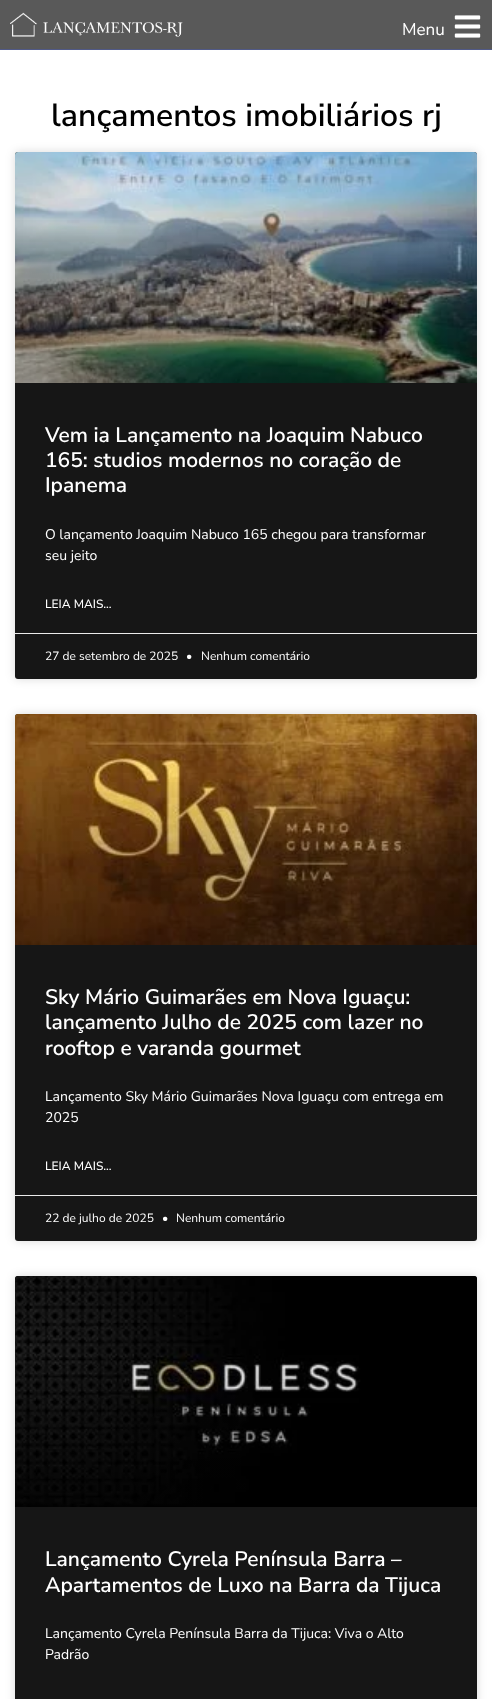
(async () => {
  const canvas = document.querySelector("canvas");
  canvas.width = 492;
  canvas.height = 1699;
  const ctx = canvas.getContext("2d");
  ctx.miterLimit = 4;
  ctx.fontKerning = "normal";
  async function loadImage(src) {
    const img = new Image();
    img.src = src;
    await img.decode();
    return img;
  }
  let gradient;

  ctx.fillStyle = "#ffffff";
  ctx.fillRect(0, 0, 492, 1699);
  ctx.fillStyle = "#595959";
  ctx.fillRect(0, 0, 492, 49);
  ctx.fillStyle = "#505987";
  ctx.fillRect(0, 49, 492, 1);
  ctx.drawImage(await loadImage("img/1.png"), 10, 12, 173, 25);
  ctx.drawImage(await loadImage("img/2.png"), 454, 15, 27, 23);
  ctx.fillStyle = "rgba(0, 0, 0, 0.15)";
  ctx.filter = "blur(5px)";
  ctx.beginPath();
  ctx.roundRect(15, 152, 462, 527, 3);
  ctx.fill();
  ctx.filter = "none";
  ctx.fillStyle = "#161616";
  ctx.beginPath();
  ctx.roundRect(15, 152, 462, 527, 3);
  ctx.fill();
  ctx.drawImage(await loadImage("img/3.png"), 15, 152, 462, 231);
  gradient = ctx.createLinearGradient(246, 383, 246, 152);
  gradient.addColorStop(0, "rgba(0, 0, 0, 0.35)");
  gradient.addColorStop(0.75, "rgba(0, 0, 0, 0)");
  ctx.fillStyle = gradient;
  ctx.fillRect(15, 220, 462, 163);
  ctx.fillStyle = "#eaeaea";
  ctx.fillRect(15, 633, 462, 1);
  ctx.fillStyle = "rgba(0, 0, 0, 0.15)";
  ctx.filter = "blur(5px)";
  ctx.beginPath();
  ctx.roundRect(15, 714, 462, 527, 3);
  ctx.fill();
  ctx.filter = "none";
  ctx.fillStyle = "#161616";
  ctx.beginPath();
  ctx.roundRect(15, 714, 462, 527, 3);
  ctx.fill();
  ctx.drawImage(await loadImage("img/4.png"), 15, 714, 462, 231);
  gradient = ctx.createLinearGradient(246, 945, 246, 714);
  gradient.addColorStop(0, "rgba(0, 0, 0, 0.35)");
  gradient.addColorStop(0.75, "rgba(0, 0, 0, 0)");
  ctx.fillStyle = gradient;
  ctx.fillRect(15, 782, 462, 163);
  ctx.fillStyle = "#eaeaea";
  ctx.fillRect(15, 1195, 462, 1);
  ctx.fillStyle = "rgba(0, 0, 0, 0.15)";
  ctx.filter = "blur(5px)";
  ctx.beginPath();
  ctx.roundRect(15, 1276, 462, 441, 3);
  ctx.fill();
  ctx.filter = "none";
  ctx.fillStyle = "#161616";
  ctx.beginPath();
  ctx.roundRect(15, 1276, 462, 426, 3);
  ctx.fill();
  ctx.drawImage(await loadImage("img/5.png"), 15, 1276, 462, 231);
  gradient = ctx.createLinearGradient(246, 1507, 246, 1276);
  gradient.addColorStop(0, "rgba(0, 0, 0, 0.35)");
  gradient.addColorStop(0.75, "rgba(0, 0, 0, 0)");
  ctx.fillStyle = gradient;
  ctx.fillRect(15, 1364, 342, 142);
  ctx.font = "17px Nunito Sans";
  ctx.fillStyle = "#ffffff";
  ctx.fillText("Menu", 402, 35);
  ctx.font = "600 32px Nunito Sans";
  ctx.fillStyle = "#000000";
  ctx.fillText("lançamentos imobiliários rj", 51, 126);
  ctx.font = "600 21px Nunito Sans";
  ctx.fillStyle = "#ffffff";
  for (const [text, x, y] of [
    ["Vem ia Lançamento na Joaquim Nabuco", 45, 442],
    ["165: studios modernos no coração de", 45, 467],
    ["Ipanema", 45, 492],
  ]) {
    ctx.fillText(text, x, y);
  }
  ctx.font = "14px Nunito Sans";
  ctx.fillText("O lançamento Joaquim Nabuco 165 chegou para transformar", 45, 539);
  ctx.fillText("seu jeito", 45, 560);
  ctx.font = "500 12px Nunito Sans";
  ctx.fillText("LEIA MAIS...", 45, 608);
  ctx.font = "12px Nunito Sans";
  for (const [text, x, y] of [
    ["27 de setembro de 2025", 45, 660],
    ["•", 186, 660],
    ["Nenhum comentário", 201, 660],
  ]) {
    ctx.fillText(text, x, y);
  }
  ctx.font = "600 21px Nunito Sans";
  for (const [text, x, y] of [
    ["Sky Mário Guimarães em Nova Iguaçu:", 45, 1004],
    ["lançamento Julho de 2025 com lazer no", 45, 1029],
    ["rooftop e varanda gourmet", 45, 1055],
  ]) {
    ctx.fillText(text, x, y);
  }
  ctx.font = "14px Nunito Sans";
  ctx.fillText("Lançamento Sky Mário Guimarães Nova Iguaçu com entrega em", 45, 1101);
  ctx.fillText("2025", 45, 1122);
  ctx.font = "500 12px Nunito Sans";
  ctx.fillText("LEIA MAIS...", 45, 1170);
  ctx.font = "12px Nunito Sans";
  for (const [text, x, y] of [
    ["22 de julho de 2025", 45, 1222],
    ["•", 162, 1222],
    ["Nenhum comentário", 176, 1222],
  ]) {
    ctx.fillText(text, x, y);
  }
  ctx.font = "600 21px Nunito Sans";
  ctx.fillText("Lançamento Cyrela Península Barra –", 45, 1566);
  ctx.fillText("Apartamentos de Luxo na Barra da Tijuca", 45, 1592);
  ctx.font = "14px Nunito Sans";
  ctx.fillText("Lançamento Cyrela Península Barra da Tijuca: Viva o Alto", 45, 1638);
  ctx.fillText("Padrão", 45, 1659);
})();
